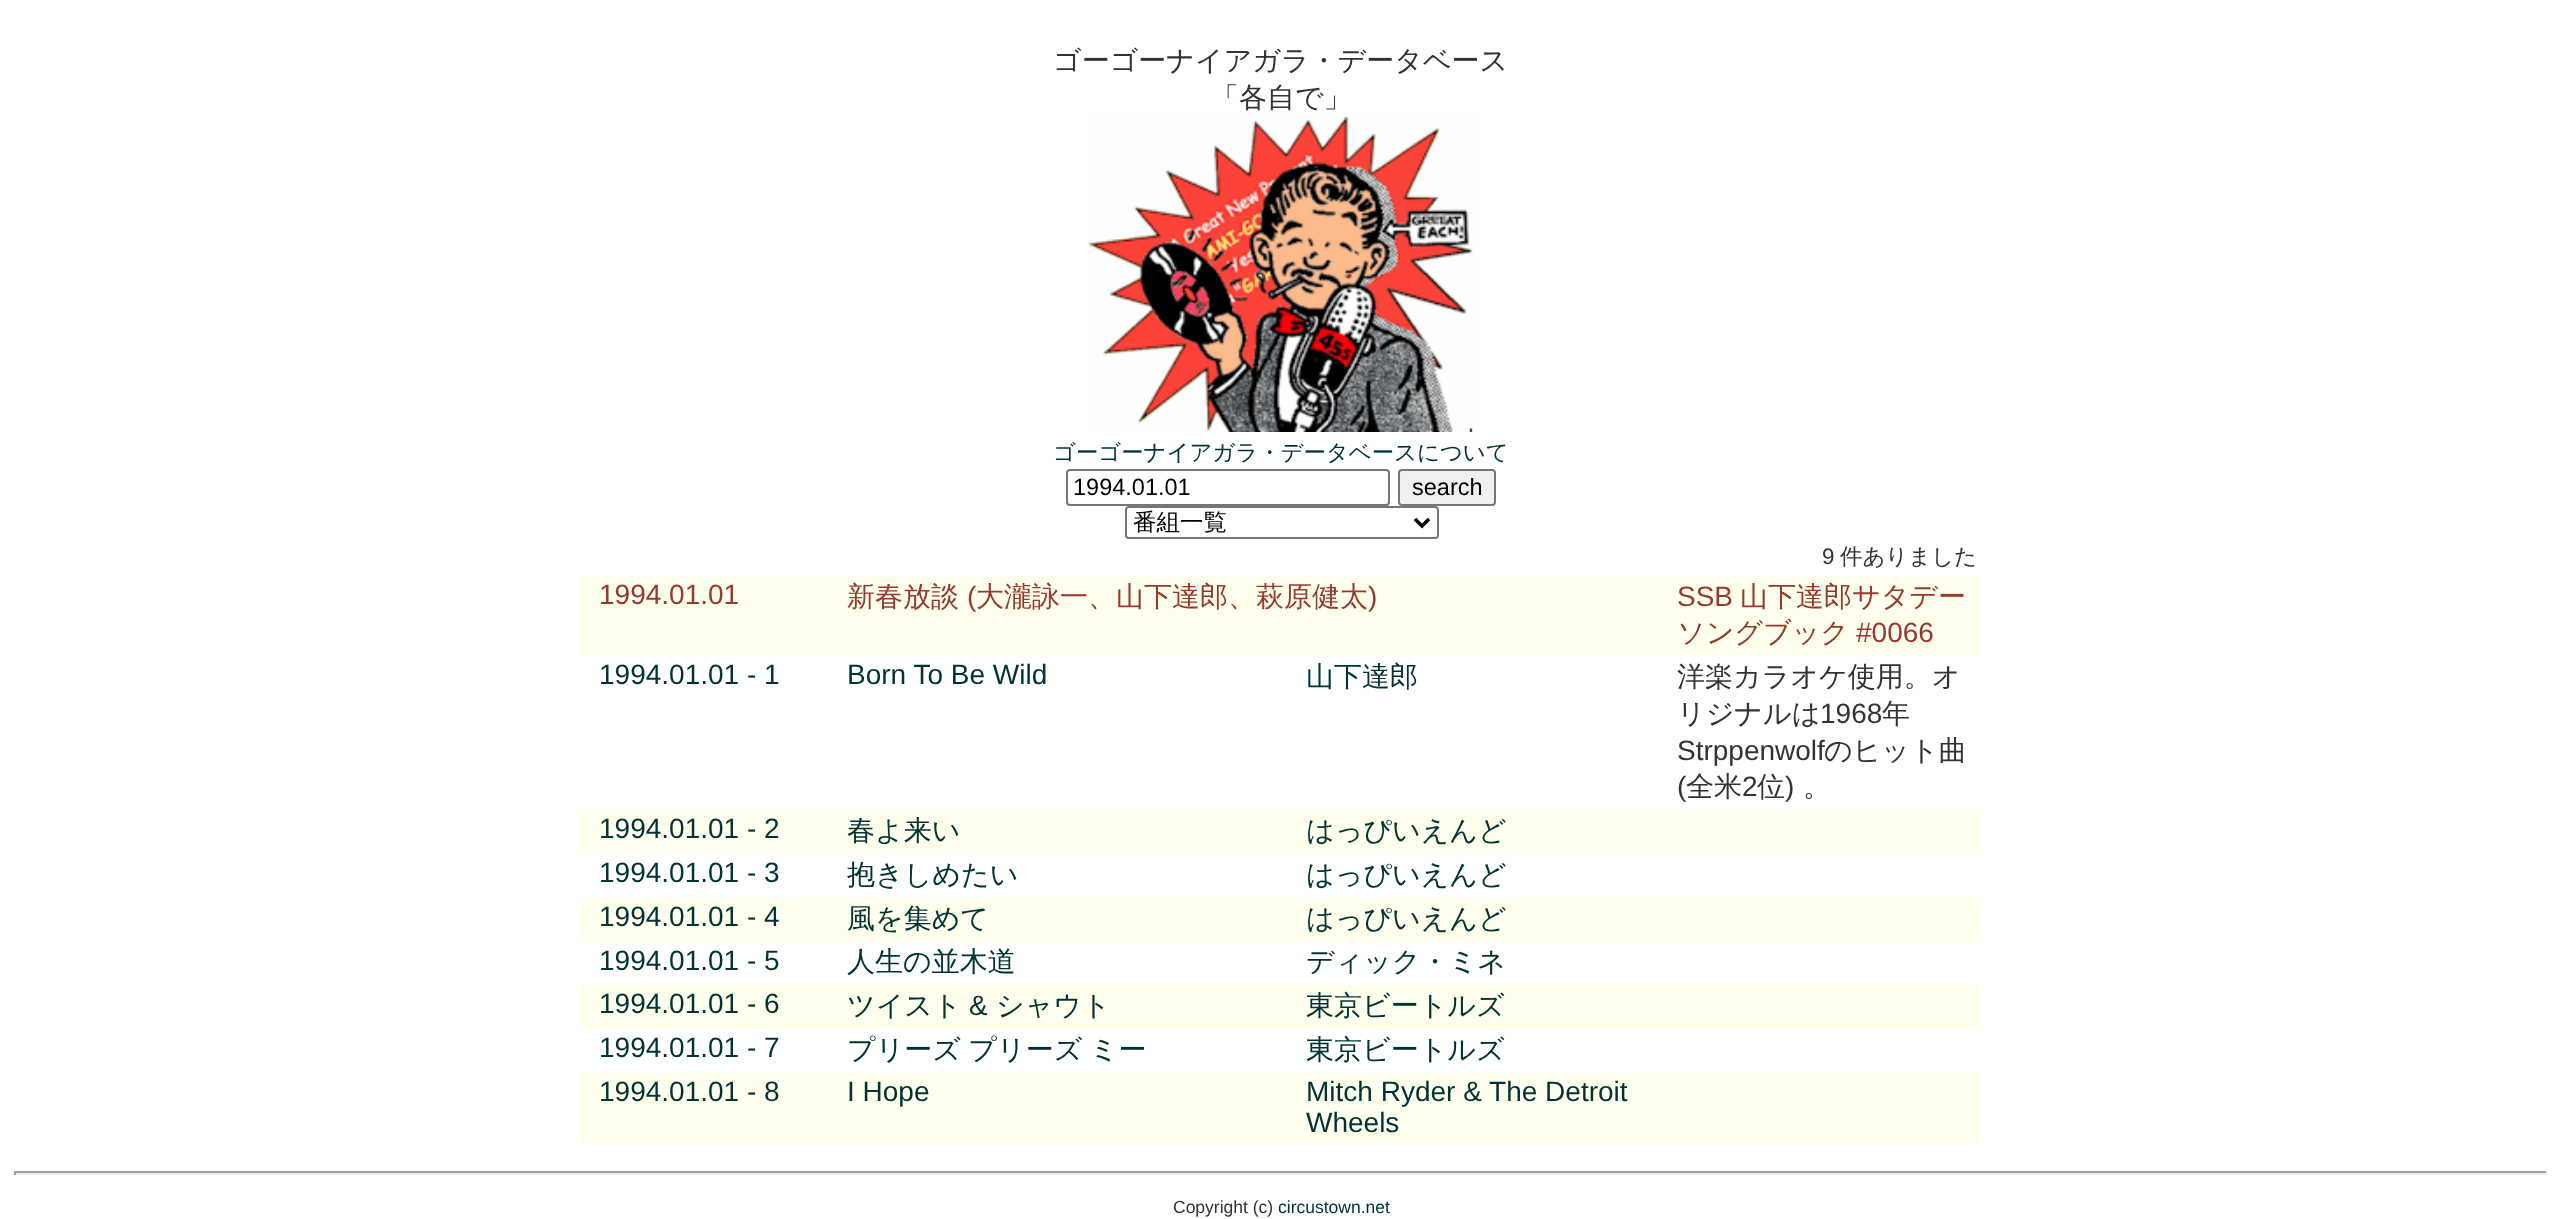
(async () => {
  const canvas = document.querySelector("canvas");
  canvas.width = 2561;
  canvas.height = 1219;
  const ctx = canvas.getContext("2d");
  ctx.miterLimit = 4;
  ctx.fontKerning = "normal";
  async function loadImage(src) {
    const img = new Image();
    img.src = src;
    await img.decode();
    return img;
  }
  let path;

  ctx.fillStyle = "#ffffff";
  ctx.fillRect(0, 0, 2561, 1219);
  ctx.drawImage(await loadImage("img/1.png"), 1088, 117, 385, 315);
  ctx.beginPath();
  ctx.roundRect(1067, 470, 322, 35, 3);
  ctx.strokeStyle = "#767676";
  ctx.lineWidth = 2;
  ctx.stroke();
  ctx.fillStyle = "#efefef";
  ctx.beginPath();
  ctx.roundRect(1399, 470, 96, 35, 3);
  ctx.fill();
  ctx.stroke();
  ctx.beginPath();
  ctx.roundRect(1126, 507, 312, 31, 3);
  ctx.stroke();
  path = new Path2D("M1415 519L1422 526L1429 519");
  ctx.strokeStyle = "#000000";
  ctx.lineWidth = 3.5;
  ctx.stroke(path);
  for (const [x, y, w, h, color] of [
    [581, 576, 1400, 80, "#ffffee"],
    [581, 810, 1400, 44, "#ffffee"],
    [581, 898, 1400, 44, "#ffffee"],
    [581, 985, 1400, 44, "#ffffee"],
    [581, 1073, 1400, 70, "#ffffee"],
    [14, 1171, 2534, 2, "#9f9f9f"],
    [2546, 1171, 2, 4, "#eeeeee"],
    [14, 1173, 2534, 2, "#eeeeee"],
    [14, 1171, 2, 4, "#9f9f9f"],
  ]) {
    ctx.fillStyle = color;
    ctx.fillRect(x, y, w, h);
  }
  ctx.font = "500 28px WenQuanYi Zen Hei";
  ctx.fillStyle = "#333333";
  ctx.fillText("ゴーゴーナイアガラ・データベース", 1053, 70);
  ctx.fillText("「各自で」", 1211, 107);
  ctx.font = "500 22.4px WenQuanYi Zen Hei";
  ctx.fillStyle = "#003333";
  ctx.fillText("ゴーゴーナイアガラ・データベースについて", 1053, 460);
  ctx.font = "23.5px Liberation Sans";
  ctx.fillStyle = "#000000";
  ctx.fillText("1994.01.01", 1073, 495);
  ctx.fillText("search", 1412, 495);
  ctx.font = "500 23.5px WenQuanYi Zen Hei";
  ctx.fillText("番組一覧", 1133, 530);
  ctx.font = "22.4px Liberation Sans";
  ctx.fillStyle = "#333333";
  ctx.fillText("9", 1822, 564);
  ctx.font = "500 22.4px WenQuanYi Zen Hei";
  ctx.fillText("件ありました", 1840, 564);
  ctx.font = "28px Liberation Sans";
  ctx.fillStyle = "#99382c";
  ctx.fillText("1994.01.01", 599, 604);
  ctx.font = "500 28px WenQuanYi Zen Hei";
  ctx.fillText("新春放談", 847, 606);
  ctx.font = "28px Liberation Sans";
  ctx.fillText("(", 967, 606);
  ctx.font = "500 28px WenQuanYi Zen Hei";
  ctx.fillText("大瀧詠一、山下達郎、萩原健太", 976, 606);
  ctx.font = "28px Liberation Sans";
  ctx.fillText(")", 1368, 606);
  ctx.fillText("SSB", 1677, 606);
  ctx.font = "500 28px WenQuanYi Zen Hei";
  ctx.fillText("山下達郎サタデー", 1740, 606);
  ctx.fillText("ソングブック", 1677, 642);
  ctx.font = "28px Liberation Sans";
  ctx.fillText("#0066", 1856, 642);
  ctx.fillStyle = "#003333";
  ctx.fillText("1994.01.01 - 1", 599, 684);
  ctx.fillText("Born To Be Wild", 847, 684);
  ctx.font = "500 28px WenQuanYi Zen Hei";
  ctx.fillText("山下達郎", 1306, 686);
  ctx.fillStyle = "#333333";
  ctx.fillText("洋楽カラオケ使用。オ", 1677, 686);
  ctx.fillText("リジナルは", 1677, 723);
  ctx.font = "28px Liberation Sans";
  ctx.fillText("1968", 1820, 723);
  ctx.font = "500 28px WenQuanYi Zen Hei";
  ctx.fillText("年", 1882, 723);
  ctx.font = "28px Liberation Sans";
  ctx.fillText("Strppenwolf", 1677, 760);
  ctx.font = "500 28px WenQuanYi Zen Hei";
  ctx.fillText("のヒット曲", 1824, 760);
  ctx.font = "28px Liberation Sans";
  ctx.fillText("(", 1677, 796);
  ctx.font = "500 28px WenQuanYi Zen Hei";
  ctx.fillText("全米", 1686, 796);
  ctx.font = "28px Liberation Sans";
  ctx.fillText("2", 1742, 796);
  ctx.font = "500 28px WenQuanYi Zen Hei";
  ctx.fillText("位", 1757, 796);
  ctx.font = "28px Liberation Sans";
  ctx.fillText(")", 1785, 796);
  ctx.font = "500 28px WenQuanYi Zen Hei";
  ctx.fillText("。", 1803, 796);
  ctx.font = "28px Liberation Sans";
  ctx.fillStyle = "#003333";
  ctx.fillText("1994.01.01 - 2", 599, 838);
  ctx.font = "500 28px WenQuanYi Zen Hei";
  ctx.fillText("春よ来い", 847, 840);
  ctx.fillText("はっぴいえんど", 1306, 840);
  ctx.font = "28px Liberation Sans";
  ctx.fillText("1994.01.01 - 3", 599, 882);
  ctx.font = "500 28px WenQuanYi Zen Hei";
  ctx.fillText("抱きしめたい", 847, 884);
  ctx.fillText("はっぴいえんど", 1306, 884);
  ctx.font = "28px Liberation Sans";
  ctx.fillText("1994.01.01 - 4", 599, 926);
  ctx.font = "500 28px WenQuanYi Zen Hei";
  ctx.fillText("風を集めて", 847, 928);
  ctx.fillText("はっぴいえんど", 1306, 928);
  ctx.font = "28px Liberation Sans";
  ctx.fillText("1994.01.01 - 5", 599, 970);
  ctx.font = "500 28px WenQuanYi Zen Hei";
  ctx.fillText("人生の並木道", 847, 971);
  ctx.fillText("ディック・ミネ", 1306, 971);
  ctx.font = "28px Liberation Sans";
  ctx.fillText("1994.01.01 - 6", 599, 1013);
  ctx.font = "500 28px WenQuanYi Zen Hei";
  ctx.fillText("ツイスト", 847, 1015);
  ctx.font = "28px Liberation Sans";
  ctx.fillText("&", 969, 1015);
  ctx.font = "500 28px WenQuanYi Zen Hei";
  ctx.fillText("シャウト", 996, 1015);
  ctx.fillText("東京ビートルズ", 1306, 1015);
  ctx.font = "28px Liberation Sans";
  ctx.fillText("1994.01.01 - 7", 599, 1057);
  ctx.wordSpacing = "-1px";
  ctx.font = "500 28px WenQuanYi Zen Hei";
  ctx.fillText("プリーズ プリーズ ミー", 847, 1059);
  ctx.wordSpacing = "0px";
  ctx.fillText("東京ビートルズ", 1306, 1059);
  ctx.font = "28px Liberation Sans";
  for (const [text, x, y] of [
    ["1994.01.01 - 8", 599, 1101],
    ["I Hope", 847, 1101],
    ["Mitch Ryder & The Detroit", 1306, 1101],
    ["Wheels", 1306, 1132],
  ]) {
    ctx.fillText(text, x, y);
  }
  ctx.font = "17.5px Liberation Sans";
  ctx.fillStyle = "#333333";
  ctx.fillText("Copyright (c)", 1173, 1213);
  ctx.fillStyle = "#003333";
  ctx.fillText("circustown.net", 1278, 1213);
})();
